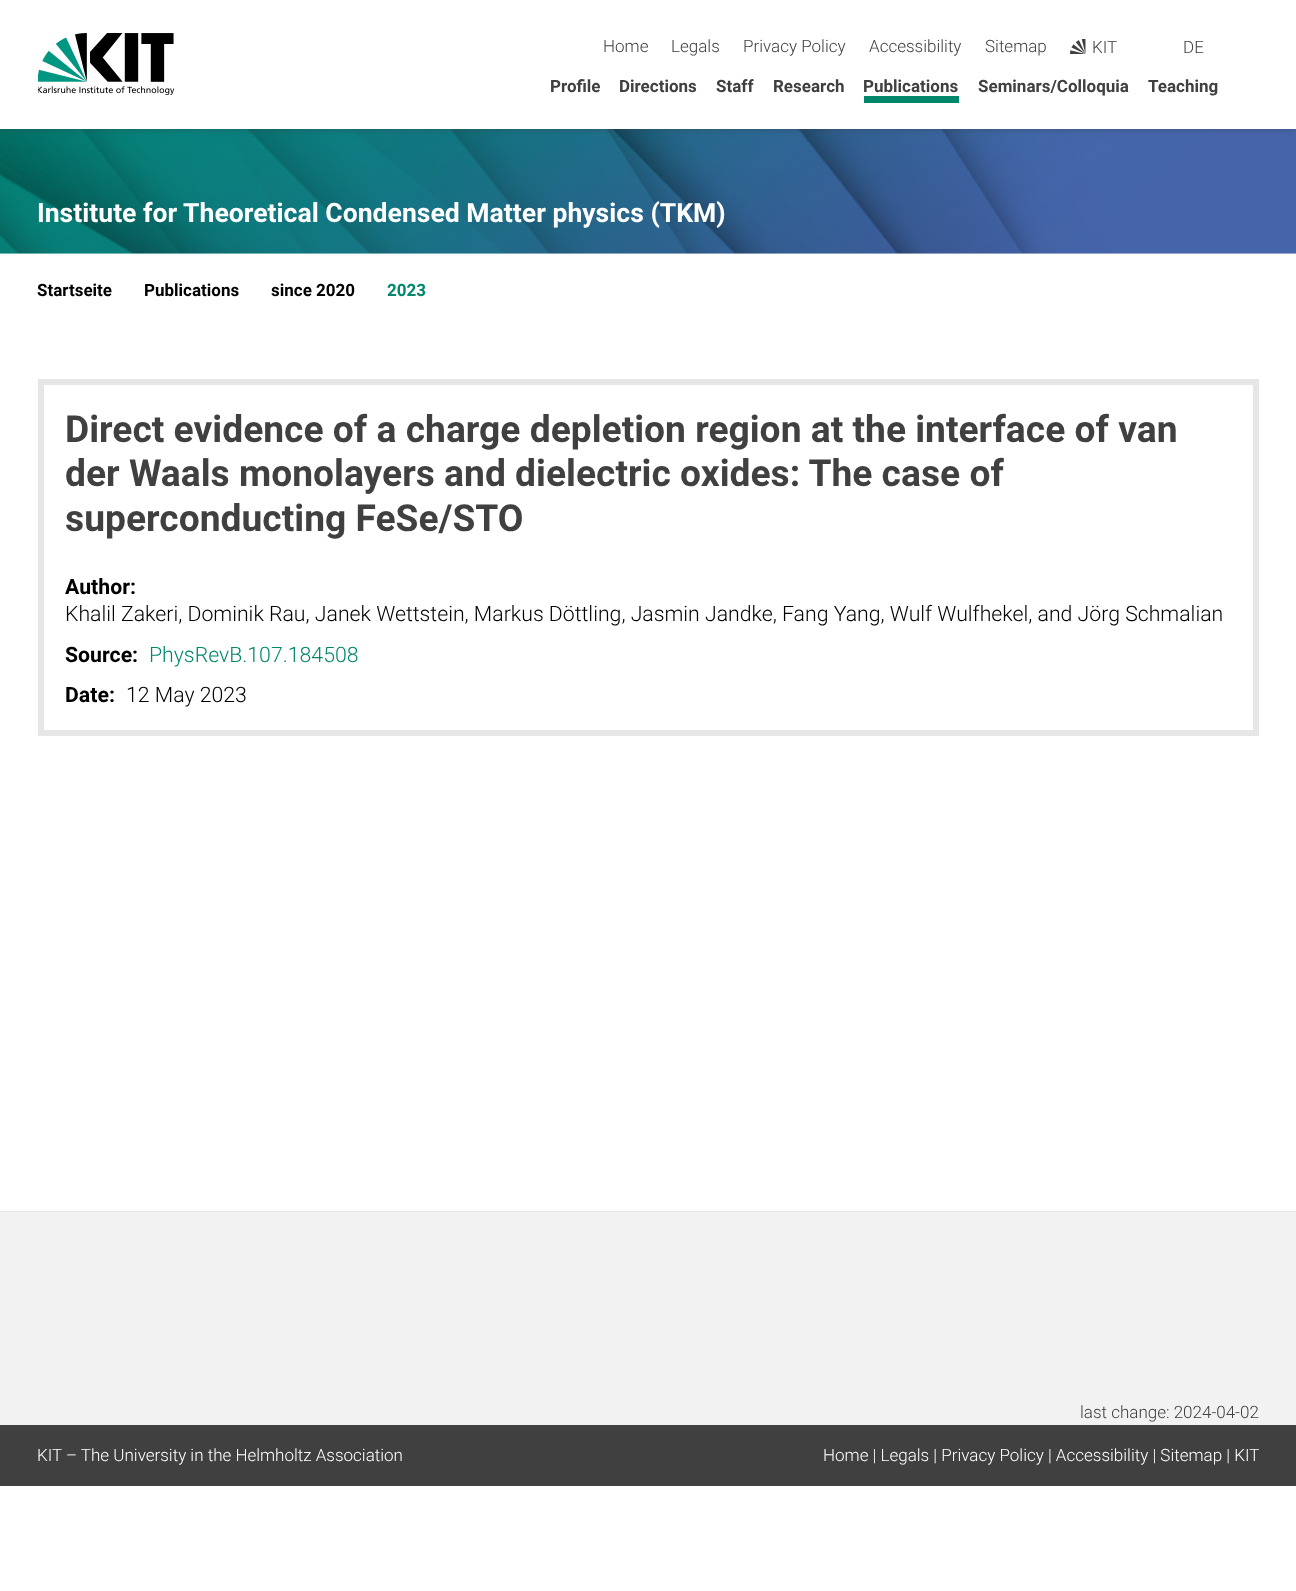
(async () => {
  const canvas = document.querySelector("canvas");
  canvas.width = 1296;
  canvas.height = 1591;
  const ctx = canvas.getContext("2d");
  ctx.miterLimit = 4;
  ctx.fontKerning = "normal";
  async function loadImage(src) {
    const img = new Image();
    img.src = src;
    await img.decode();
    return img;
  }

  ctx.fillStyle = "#ffffff";
  ctx.fillRect(0, 0, 1296, 1591);
  ctx.drawImage(await loadImage("img/3.png"), 0, 129, 1296, 125);
  ctx.fillStyle = "rgba(64, 64, 64, 0.5)";
  ctx.filter = "blur(3px)";
  ctx.beginPath();
  ctx.rect(0, 0, 1296, 129);
  ctx.fill();
  ctx.filter = "none";
  ctx.fillStyle = "#ffffff";
  ctx.fillRect(0, 0, 1296, 129);
  ctx.drawImage(await loadImage("img/1.png"), 38, 33, 136, 62);
  ctx.drawImage(await loadImage("img/2.png"), 1070, 39, 16, 15);
  ctx.fillStyle = "#00876c";
  ctx.fillRect(864, 96, 95, 7);
  ctx.strokeStyle = "#e6e6e6";
  ctx.lineWidth = 6;
  ctx.strokeRect(41, 382, 1215, 351);
  for (const [x, y, w, h, color] of [
    [0, 1212, 1296, 213, "#f2f2f2"],
    [0, 1211, 1296, 1, "#e6e6e6"],
    [0, 1425, 1296, 61, "#404040"],
  ]) {
    ctx.fillStyle = color;
    ctx.fillRect(x, y, w, h);
  }
  ctx.font = "300 17px Roboto";
  for (const [text, x, y] of [
    ["Home", 603, 52],
    ["Legals", 671, 52],
    ["Privacy Policy", 743, 52],
    ["Accessibility", 869, 52],
    ["Sitemap", 985, 52],
    ["KIT", 1092, 53],
    ["DE", 1183, 53],
  ]) {
    ctx.fillText(text, x, y);
  }
  ctx.font = "bold 17px Roboto";
  for (const [text, x, y] of [
    ["Profile", 550, 92],
    ["Directions", 619, 92],
    ["Staff", 716, 92],
    ["Research", 773, 92],
    ["Publications", 863, 92],
    ["Seminars/Colloquia", 978, 92],
    ["Teaching", 1148, 92],
  ]) {
    ctx.fillText(text, x, y);
  }
  ctx.font = "bold 26.55px Roboto";
  ctx.fillStyle = "#ffffff";
  ctx.fillText("Institute for Theoretical Condensed Matter physics (TKM)", 37, 222);
  ctx.font = "bold 17px Roboto";
  ctx.fillStyle = "#000000";
  for (const [text, x, y] of [
    ["Startseite", 37, 296],
    ["Publications", 144, 296],
    ["since 2020", 271, 296],
  ]) {
    ctx.fillText(text, x, y);
  }
  ctx.fillStyle = "#00876c";
  ctx.fillText("2023", 387, 296);
  ctx.font = "bold 37.2px Roboto";
  ctx.fillStyle = "#404040";
  for (const [text, x, y] of [
    ["Direct evidence of a charge depletion region at the interface of van", 65, 442],
    ["der Waals monolayers and dielectric oxides: The case of", 65, 486],
    ["superconducting FeSe/STO", 65, 531],
  ]) {
    ctx.fillText(text, x, y);
  }
  ctx.font = "bold 21.25px Roboto";
  ctx.fillStyle = "#000000";
  ctx.fillText("Author:", 65, 594);
  ctx.font = "300 21.25px Roboto";
  ctx.fillText("Khalil Zakeri, Dominik Rau, Janek Wettstein, Markus Döttling, Jasmin Jandke, Fang Yang, Wulf Wulfhekel, and Jörg Schmalian", 65, 621);
  ctx.font = "bold 21.25px Roboto";
  ctx.fillText("Source:", 65, 662);
  ctx.font = "300 21.25px Roboto";
  ctx.fillStyle = "#00876c";
  ctx.fillText("PhysRevB.107.184508", 149, 662);
  ctx.font = "bold 21.25px Roboto";
  ctx.fillStyle = "#000000";
  ctx.fillText("Date:", 65, 702);
  ctx.font = "300 21.25px Roboto";
  ctx.fillText("12 May 2023", 126, 702);
  ctx.font = "300 17px Roboto";
  ctx.fillStyle = "#404040";
  ctx.fillText("last change: 2024-04-02", 1080, 1418);
  ctx.fillStyle = "#ffffff";
  ctx.fillText("KIT – The University in the Helmholtz Association", 37, 1461);
  ctx.fillText("Home | Legals | Privacy Policy | Accessibility | Sitemap | KIT", 823, 1461);
})();
